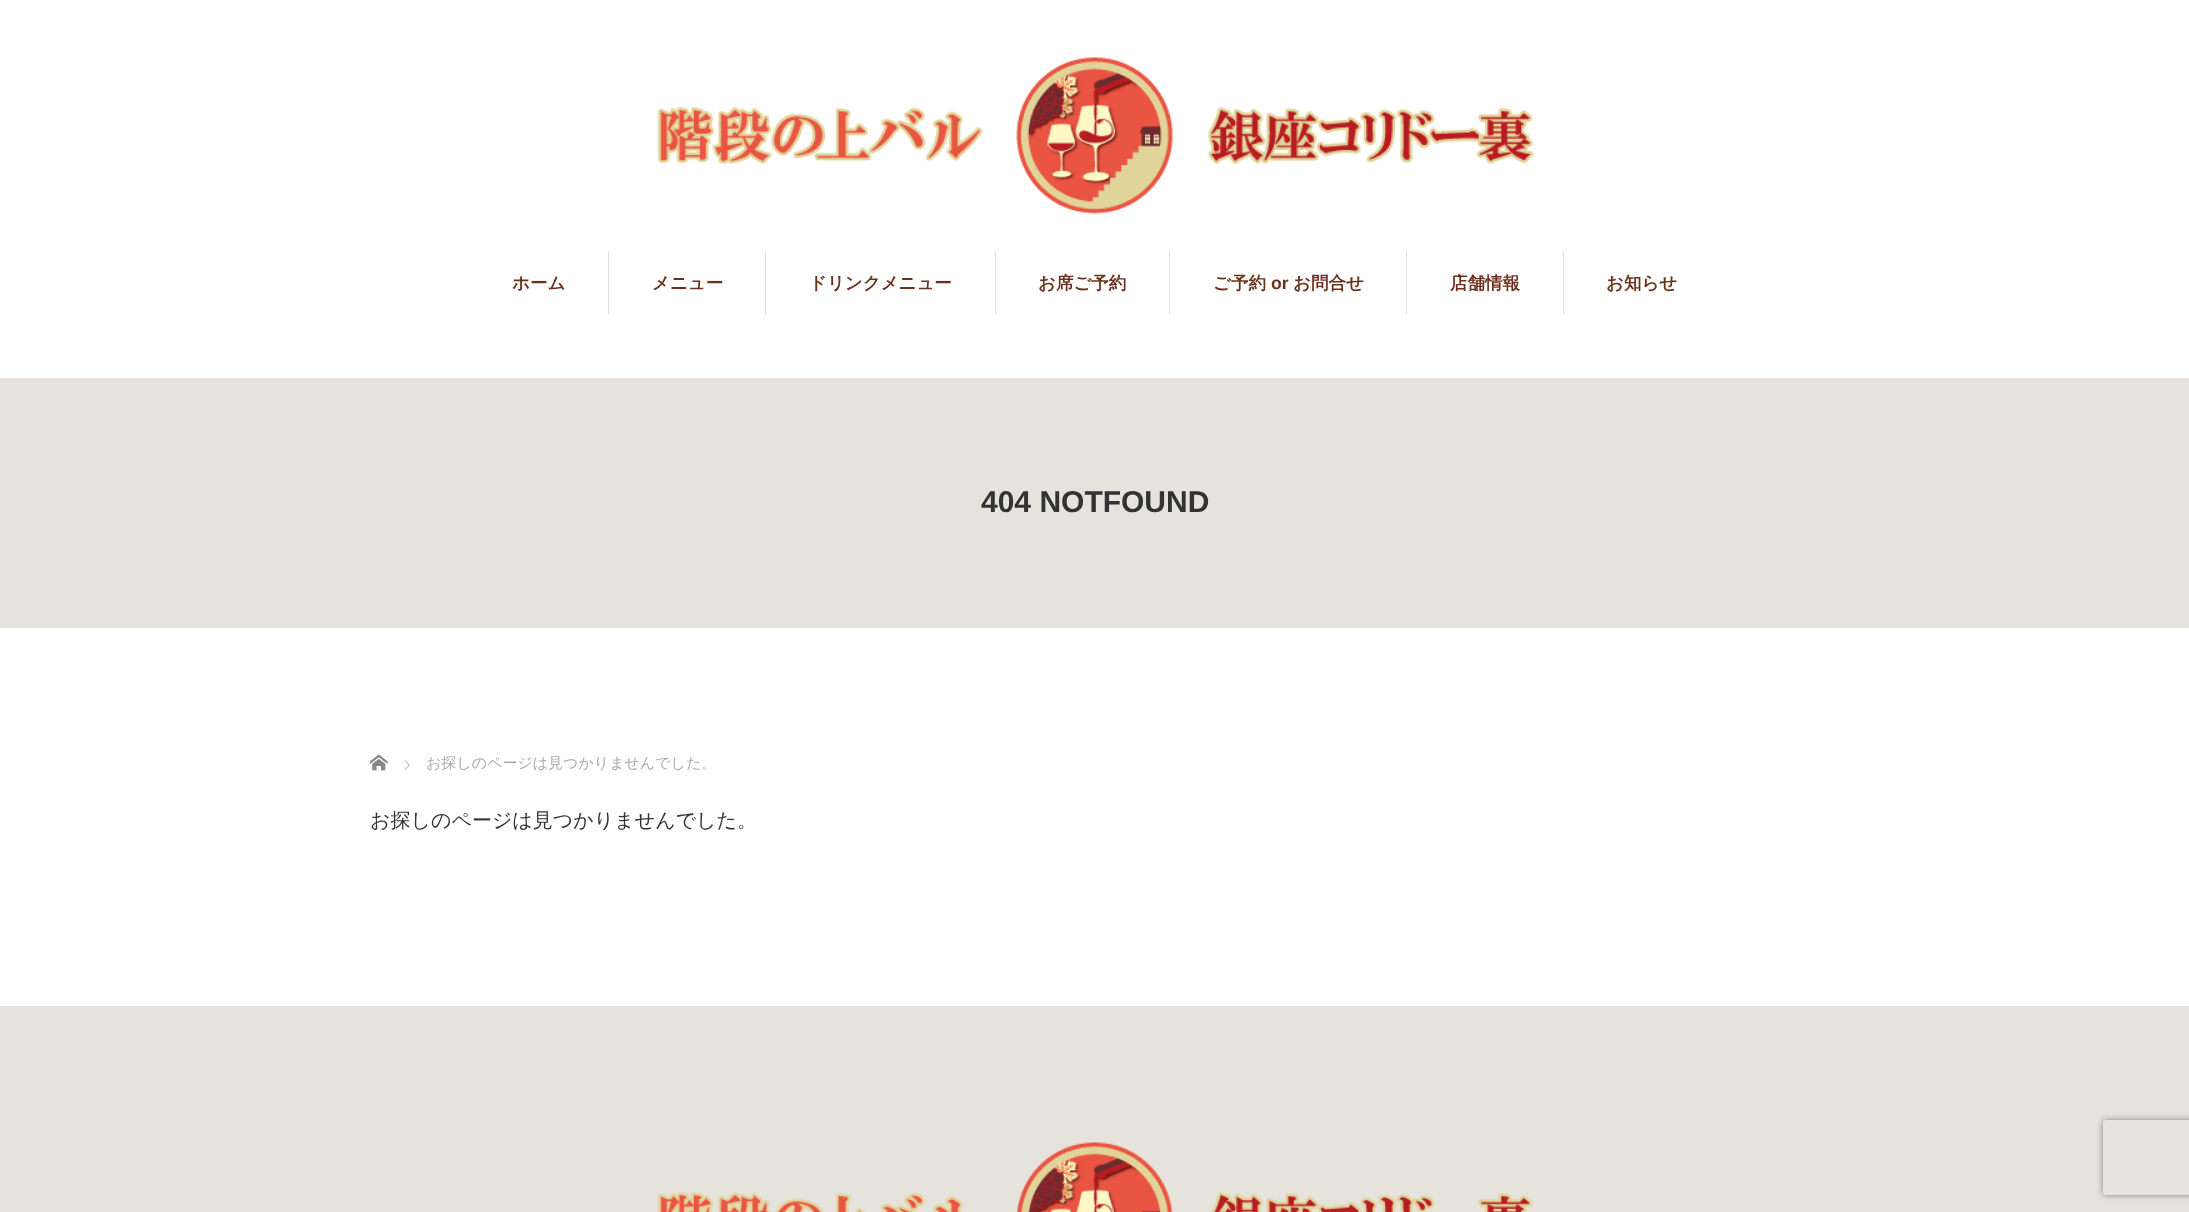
(async () => {
  const canvas = document.querySelector("canvas");
  canvas.width = 2189;
  canvas.height = 1212;
  const ctx = canvas.getContext("2d");
  ctx.miterLimit = 4;
  ctx.fontKerning = "normal";
  async function loadImage(src) {
    const img = new Image();
    img.src = src;
    await img.decode();
    return img;
  }
  let path;

  ctx.fillStyle = "#ffffff";
  ctx.fillRect(0, 0, 2189, 1212);
  ctx.drawImage(await loadImage("img/1.png"), 657, 57, 877, 157);
  for (const [x, y, w, h, color] of [
    [608, 251, 1, 63, "#dddddd"],
    [765, 251, 1, 63, "#dddddd"],
    [995, 251, 1, 63, "#dddddd"],
    [1169, 251, 1, 63, "#dddddd"],
    [1406, 251, 1, 63, "#dddddd"],
    [1563, 251, 1, 63, "#dddddd"],
    [0, 378, 2189, 250, "#e6e3dc"],
  ]) {
    ctx.fillStyle = color;
    ctx.fillRect(x, y, w, h);
  }
  ctx.drawImage(await loadImage("img/2.png"), 370, 754, 18, 17);
  ctx.drawImage(await loadImage("img/3.png"), 404, 760, 6, 10);
  ctx.fillRect(0, 1006, 2189, 206);
  ctx.drawImage(await loadImage("img/4.png"), 657, 1142, 876, 70);
  ctx.save();
  path = new Path2D("M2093 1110H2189V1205H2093ZM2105.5 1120H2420.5C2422 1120 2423 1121 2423 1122.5V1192.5C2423 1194 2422 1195 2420.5 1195H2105.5C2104 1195 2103 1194 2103 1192.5V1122.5C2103 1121 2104 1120 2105.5 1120Z");
  ctx.clip(path, "evenodd");
  ctx.fillStyle = "#808080";
  ctx.filter = "blur(3px)";
  ctx.beginPath();
  ctx.roundRect(2103, 1120, 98, 75, 2.5);
  ctx.fill();
  ctx.filter = "none";
  ctx.restore();
  ctx.font = "bold 17.5px WenQuanYi Zen Hei";
  ctx.fillStyle = "#6a321d";
  for (const [text, x, y] of [
    ["ホーム", 512, 289],
    ["メニュー", 652, 289],
    ["ドリンクメニュー", 809, 289],
    ["お席ご予約", 1038, 289],
    ["ご予約", 1213, 289],
  ]) {
    ctx.fillText(text, x, y);
  }
  ctx.font = "bold 17.5px Liberation Sans";
  ctx.fillText("or", 1271, 289);
  ctx.font = "bold 17.5px WenQuanYi Zen Hei";
  for (const [text, x, y] of [
    ["お問合せ", 1293, 289],
    ["店舗情報", 1450, 289],
    ["お知らせ", 1606, 289],
  ]) {
    ctx.fillText(text, x, y);
  }
  ctx.font = "bold 30px Liberation Sans";
  ctx.fillStyle = "#333333";
  ctx.fillText("404 NOTFOUND", 981, 512);
  ctx.font = "500 15px WenQuanYi Zen Hei";
  ctx.fillStyle = "#aaaaaa";
  ctx.fillText("お探しのページは見つかりませんでした。", 426, 768);
  ctx.font = "500 20px WenQuanYi Zen Hei";
  ctx.fillStyle = "#333333";
  ctx.fillText("お探しのページは見つかりませんでした。", 370, 827);
})();
